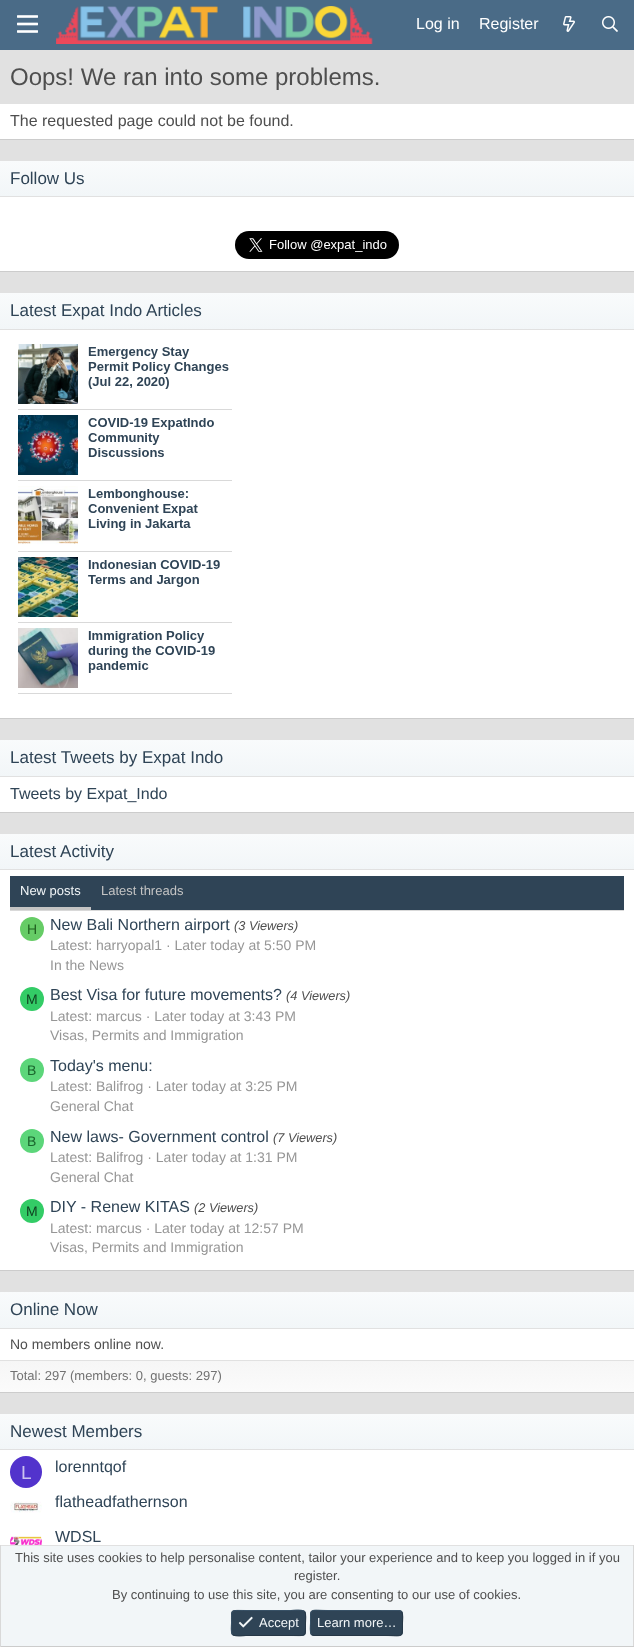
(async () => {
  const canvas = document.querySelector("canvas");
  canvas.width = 634;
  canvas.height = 1647;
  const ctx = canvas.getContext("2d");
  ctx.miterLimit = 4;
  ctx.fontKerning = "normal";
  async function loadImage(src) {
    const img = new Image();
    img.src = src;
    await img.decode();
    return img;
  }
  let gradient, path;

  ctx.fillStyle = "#e1e1e1";
  ctx.fillRect(0, 0, 634, 1647);
  ctx.fillStyle = "#4a6b87";
  ctx.fillRect(0, 0, 634, 50);
  ctx.drawImage(await loadImage("img/1.png"), 17, 15, 21, 18);
  ctx.drawImage(await loadImage("img/2.png"), 56, 6, 317, 38);
  ctx.drawImage(await loadImage("img/3.png"), 563, 16, 12, 16);
  ctx.drawImage(await loadImage("img/4.png"), 602, 16, 16, 16);
  for (const [x, y, w, h, color] of [
    [0, 104, 634, 35, "#ffffff"],
    [0, 139, 634, 1, "#cccccc"],
    [0, 197, 634, 74, "#ffffff"],
    [0, 271, 634, 1, "#cccccc"],
  ]) {
    ctx.fillStyle = color;
    ctx.fillRect(x, y, w, h);
  }
  gradient = ctx.createLinearGradient(317, 196, 317, 161);
  gradient.addColorStop(0, "#f2f6f8");
  gradient.addColorStop(1, "#f9fbfc");
  ctx.fillStyle = gradient;
  ctx.fillRect(0, 161, 634, 35);
  ctx.drawImage(await loadImage("img/5.png"), 235, 231, 164, 28);
  ctx.fillStyle = "#ffffff";
  ctx.fillRect(0, 330, 634, 388);
  ctx.fillStyle = "#cccccc";
  ctx.fillRect(0, 718, 634, 1);
  gradient = ctx.createLinearGradient(317, 329, 317, 293);
  gradient.addColorStop(0, "#f2f6f8");
  gradient.addColorStop(1, "#f9fbfc");
  ctx.fillStyle = gradient;
  ctx.fillRect(0, 293, 634, 36);
  ctx.drawImage(await loadImage("img/6.png"), 18, 344, 214, 350);
  ctx.fillStyle = "#ffffff";
  ctx.fillRect(0, 777, 634, 35);
  ctx.fillStyle = "#cccccc";
  ctx.fillRect(0, 812, 634, 1);
  gradient = ctx.createLinearGradient(317, 776, 317, 740);
  gradient.addColorStop(0, "#f2f6f8");
  gradient.addColorStop(1, "#f9fbfc");
  ctx.fillStyle = gradient;
  ctx.fillRect(0, 740, 634, 36);
  ctx.fillStyle = "#ffffff";
  ctx.fillRect(0, 870, 634, 400);
  ctx.fillStyle = "#cccccc";
  ctx.fillRect(0, 1270, 634, 1);
  gradient = ctx.createLinearGradient(317, 869, 317, 834);
  gradient.addColorStop(0, "#f2f6f8");
  gradient.addColorStop(1, "#f9fbfc");
  ctx.fillStyle = gradient;
  ctx.fillRect(0, 834, 634, 35);
  for (const [x, y, w, h, color] of [
    [10, 876, 614, 34, "#2f4456"],
    [10, 910, 614, 1, "#d9d9d9"],
    [10, 907, 81, 3, "#c4c4c4"],
  ]) {
    ctx.fillStyle = color;
    ctx.fillRect(x, y, w, h);
  }
  ctx.fillStyle = "#66cc66";
  ctx.beginPath();
  ctx.arc(32, 929, 12, 0, Math.PI * 2);
  ctx.fill();
  ctx.fillStyle = "#33cc66";
  ctx.beginPath();
  ctx.arc(32, 999, 12, 0, Math.PI * 2);
  ctx.fill();
  ctx.fillStyle = "#5cd67a";
  ctx.beginPath();
  ctx.arc(32, 1070, 12, 0, Math.PI * 2);
  ctx.fill();
  ctx.beginPath();
  ctx.arc(32, 1141, 12, 0, Math.PI * 2);
  ctx.fill();
  ctx.fillStyle = "#33cc66";
  ctx.beginPath();
  ctx.arc(32, 1211, 12, 0, Math.PI * 2);
  ctx.fill();
  ctx.fillStyle = "#ffffff";
  ctx.fillRect(0, 1329, 634, 31);
  ctx.fillStyle = "#cccccc";
  ctx.fillRect(0, 1392, 634, 1);
  gradient = ctx.createLinearGradient(317, 1328, 317, 1292);
  gradient.addColorStop(0, "#f2f6f8");
  gradient.addColorStop(1, "#f9fbfc");
  ctx.fillStyle = gradient;
  ctx.fillRect(0, 1292, 634, 36);
  gradient = ctx.createLinearGradient(317, 1361, 317, 1392);
  gradient.addColorStop(0, "#f6f6f6");
  gradient.addColorStop(1, "#fbfbfb");
  ctx.fillStyle = gradient;
  ctx.fillRect(0, 1361, 634, 31);
  ctx.fillStyle = "#ffffff";
  ctx.fillRect(0, 1450, 634, 95);
  gradient = ctx.createLinearGradient(317, 1449, 317, 1414);
  gradient.addColorStop(0, "#f2f6f8");
  gradient.addColorStop(1, "#f9fbfc");
  ctx.fillStyle = gradient;
  ctx.fillRect(0, 1414, 634, 35);
  ctx.fillStyle = "#5233cc";
  ctx.beginPath();
  ctx.arc(26, 1472, 16, 0, Math.PI * 2);
  ctx.fill();
  ctx.drawImage(await loadImage("img/7.png"), 10, 1501, 32, 12);
  ctx.drawImage(await loadImage("img/8.png"), 10, 1536, 32, 9);
  for (const [x, y, w, h, color] of [
    [1, 1546, 632, 100, "#f2f6f8"],
    [633, 1545, 1, 102, "#d9d9d9"],
    [0, 1646, 634, 1, "#cccccc"],
    [0, 1545, 1, 102, "#d9d9d9"],
  ]) {
    ctx.fillStyle = color;
    ctx.fillRect(x, y, w, h);
  }
  ctx.fillStyle = "#2f4456";
  ctx.beginPath();
  ctx.roundRect(231, 1610, 75, 26, 4);
  ctx.fill();
  path = new Path2D("M304.5 1611.5C306.5 1613.5 305.5 1620.5 305.5 1623C305.5 1637.5 306.5 1635.5 291 1635.5H246C245.5 1635.5 235 1637 232.5 1634.5");
  ctx.strokeStyle = "#263746";
  ctx.stroke(path);
  path = new Path2D("M232.5 1634.5C230.5 1632.5 231.5 1625.5 231.5 1623C231.5 1608.5 230.5 1610.5 246 1610.5H291C291.5 1610.5 302 1609 304.5 1611.5");
  ctx.strokeStyle = "#385166";
  ctx.stroke(path);
  ctx.drawImage(await loadImage("img/9.png"), 238, 1616, 15, 12);
  ctx.beginPath();
  ctx.roundRect(310, 1610, 93, 26, 4);
  ctx.fill();
  path = new Path2D("M401.5 1611.5C403.5 1613.5 402.5 1620.5 402.5 1623C402.5 1639 403 1635.5 385 1635.5H314L311.5 1634.5");
  ctx.strokeStyle = "#263746";
  ctx.stroke(path);
  path = new Path2D("M311.5 1634.5C309.5 1632.5 310.5 1625.5 310.5 1623C310.5 1607 310 1610.5 328 1610.5H399L401.5 1611.5");
  ctx.strokeStyle = "#385166";
  ctx.stroke(path);
  ctx.font = "16px Liberation Sans";
  ctx.fillStyle = "#ffffff";
  ctx.fillText("Log in", 416, 29);
  ctx.fillText("Register", 479, 29);
  ctx.font = "24px Liberation Sans";
  ctx.fillStyle = "#4e4e4e";
  ctx.fillText("Oops! We ran into some problems.", 10, 85);
  ctx.font = "16px Liberation Sans";
  ctx.fillText("The requested page could not be found.", 10, 126);
  ctx.font = "17px Liberation Sans";
  ctx.fillStyle = "#2f4456";
  for (const [text, x, y] of [
    ["Follow Us", 10, 184],
    ["Latest Expat Indo Articles", 10, 316],
    ["Latest Tweets by Expat Indo", 10, 763],
  ]) {
    ctx.fillText(text, x, y);
  }
  ctx.font = "16px Liberation Sans";
  ctx.fillText("Tweets by Expat_Indo", 10, 799);
  ctx.font = "17px Liberation Sans";
  ctx.fillText("Latest Activity", 10, 857);
  ctx.font = "13px Liberation Sans";
  ctx.fillStyle = "#f2f6f8";
  ctx.fillText("New posts", 20, 895);
  ctx.fillStyle = "#c4c4c4";
  ctx.fillText("Latest threads", 101, 895);
  ctx.font = "14px Liberation Sans";
  ctx.fillStyle = "#206020";
  ctx.fillText("H", 27, 934);
  ctx.font = "16px Liberation Sans";
  ctx.fillStyle = "#2f4456";
  ctx.fillText("New Bali Northern airport", 50, 930);
  ctx.font = "italic 12.75px Liberation Sans";
  ctx.fillStyle = "#4e4e4e";
  ctx.fillText("(3 Viewers)", 234, 930);
  ctx.font = "14px Liberation Sans";
  ctx.fillStyle = "#969696";
  ctx.fillText("Latest: harryopal1 · Later today at 5:50 PM", 50, 950);
  ctx.fillText("In the News", 50, 970);
  ctx.fillStyle = "#0f3d1f";
  ctx.fillText("M", 26, 1004);
  ctx.font = "16px Liberation Sans";
  ctx.fillStyle = "#2f4456";
  ctx.fillText("Best Visa for future movements?", 50, 1000);
  ctx.font = "italic 12.75px Liberation Sans";
  ctx.fillStyle = "#4e4e4e";
  ctx.fillText("(4 Viewers)", 286, 1000);
  ctx.font = "14px Liberation Sans";
  ctx.fillStyle = "#969696";
  ctx.fillText("Latest: marcus · Later today at 3:43 PM", 50, 1021);
  ctx.fillText("Visas, Permits and Immigration", 50, 1040);
  ctx.fillStyle = "#1a662d";
  ctx.fillText("B", 27, 1075);
  ctx.font = "16px Liberation Sans";
  ctx.fillStyle = "#2f4456";
  ctx.fillText("Today's menu:", 50, 1071);
  ctx.font = "14px Liberation Sans";
  ctx.fillStyle = "#969696";
  ctx.fillText("Latest: Balifrog · Later today at 3:25 PM", 50, 1091);
  ctx.fillText("General Chat", 50, 1111);
  ctx.fillStyle = "#1a662d";
  ctx.fillText("B", 27, 1146);
  ctx.font = "16px Liberation Sans";
  ctx.fillStyle = "#2f4456";
  ctx.fillText("New laws- Government control", 50, 1142);
  ctx.font = "italic 12.75px Liberation Sans";
  ctx.fillStyle = "#4e4e4e";
  ctx.fillText("(7 Viewers)", 273, 1142);
  ctx.font = "14px Liberation Sans";
  ctx.fillStyle = "#969696";
  ctx.fillText("Latest: Balifrog · Later today at 1:31 PM", 50, 1162);
  ctx.fillText("General Chat", 50, 1182);
  ctx.fillStyle = "#0f3d1f";
  ctx.fillText("M", 26, 1216);
  ctx.font = "16px Liberation Sans";
  ctx.fillStyle = "#2f4456";
  ctx.fillText("DIY - Renew KITAS", 50, 1212);
  ctx.font = "italic 12.75px Liberation Sans";
  ctx.fillStyle = "#4e4e4e";
  ctx.fillText("(2 Viewers)", 194, 1212);
  ctx.font = "14px Liberation Sans";
  ctx.fillStyle = "#969696";
  ctx.fillText("Latest: marcus · Later today at 12:57 PM", 50, 1233);
  ctx.fillText("Visas, Permits and Immigration", 50, 1252);
  ctx.font = "17px Liberation Sans";
  ctx.fillStyle = "#2f4456";
  ctx.fillText("Online Now", 10, 1315);
  ctx.font = "14px Liberation Sans";
  ctx.fillStyle = "#4e4e4e";
  ctx.fillText("No members online now.", 10, 1349);
  ctx.font = "13px Liberation Sans";
  ctx.fillStyle = "#727272";
  ctx.fillText("Total: 297 (members: 0, guests: 297)", 10, 1380);
  ctx.font = "17px Liberation Sans";
  ctx.fillStyle = "#2f4456";
  ctx.fillText("Newest Members", 10, 1437);
  ctx.font = "19px Liberation Sans";
  ctx.fillStyle = "#cbc2f0";
  ctx.fillText("L", 21, 1479);
  ctx.font = "16px Liberation Sans";
  ctx.fillStyle = "#2f4456";
  for (const [text, x, y] of [
    ["lorenntqof", 55, 1472],
    ["flatheadfathernson", 55, 1507],
    ["WDSL", 55, 1542],
  ]) {
    ctx.fillText(text, x, y);
  }
  ctx.font = "13px Liberation Sans";
  ctx.fillStyle = "#4e4e4e";
  for (const [text, x, y] of [
    ["This site uses cookies to help personalise content, tailor your experience and to keep you logged in if you", 15, 1562],
    ["register.", 294, 1580],
    ["By continuing to use this site, you are consenting to our use of cookies.", 112, 1599],
  ]) {
    ctx.fillText(text, x, y);
  }
  ctx.fillStyle = "#f2f6f8";
  ctx.fillText("Accept", 259, 1627);
  ctx.fillText("Learn more…", 317, 1627);
})();
